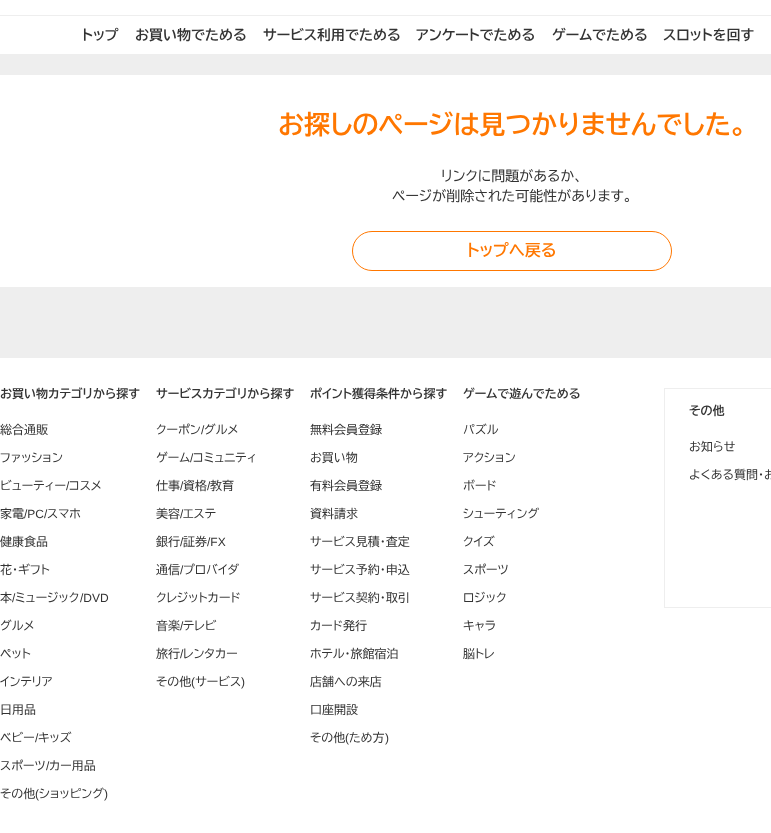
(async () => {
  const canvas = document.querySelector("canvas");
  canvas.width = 771;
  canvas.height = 833;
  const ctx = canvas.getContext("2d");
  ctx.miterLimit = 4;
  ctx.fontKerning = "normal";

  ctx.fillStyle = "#ffffff";
  ctx.fillRect(0, 0, 771, 833);
  for (const [x, y, w, h, color] of [
    [0, 54, 771, 304, "#eeeeee"],
    [0, 15, 771, 1, "#eeeeee"],
    [0, 75, 771, 212, "#ffffff"],
  ]) {
    ctx.fillStyle = color;
    ctx.fillRect(x, y, w, h);
  }
  ctx.beginPath();
  ctx.roundRect(352.5, 231.5, 319, 39, 19.5);
  ctx.strokeStyle = "#ff7700";
  ctx.stroke();
  ctx.strokeStyle = "#eeeeee";
  ctx.strokeRect(664.5, 388.5, 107, 219);
  ctx.font = "bold 14px BIZ UDPGothic";
  ctx.fillStyle = "#333333";
  for (const [text, x, y] of [
    ["トップ", 82, 40],
    ["お買い物でためる", 135, 40],
    ["サービス利用でためる", 263, 40],
    ["アンケートでためる", 416, 40],
    ["ゲームでためる", 552, 40],
    ["スロットを回す", 663, 40],
  ]) {
    ctx.fillText(text, x, y);
  }
  ctx.font = "bold 26px BIZ UDPGothic";
  ctx.fillStyle = "#ff7700";
  ctx.fillText("お探しのページは見つかりませんでした。", 278, 134);
  ctx.font = "14px BIZ UDPGothic";
  ctx.fillStyle = "#333333";
  ctx.fillText("リンクに問題があるか、", 441, 181);
  ctx.fillText("ページが削除された可能性があります。", 392, 201);
  ctx.font = "bold 16px BIZ UDPGothic";
  ctx.fillStyle = "#ff7700";
  ctx.fillText("トップへ戻る", 467, 256);
  ctx.font = "bold 12px BIZ UDPGothic";
  ctx.fillStyle = "#333333";
  ctx.fillText("お買い物カテゴリから探す", 0, 398);
  ctx.font = "12px BIZ UDPGothic";
  for (const [text, x, y] of [
    ["総合通販", 0, 434],
    ["ファッション", 0, 462],
    ["ビューティー", 0, 490],
  ]) {
    ctx.fillText(text, x, y);
  }
  ctx.font = "12px Liberation Sans";
  ctx.fillText("/", 66, 490);
  ctx.font = "12px BIZ UDPGothic";
  ctx.fillText("コスメ", 69, 490);
  ctx.fillText("家電", 0, 518);
  ctx.font = "12px Liberation Sans";
  ctx.fillText("/PC/", 24, 518);
  ctx.font = "12px BIZ UDPGothic";
  for (const [text, x, y] of [
    ["スマホ", 47, 518],
    ["健康食品", 0, 546],
    ["花・ギフト", 0, 574],
    ["本", 0, 602],
  ]) {
    ctx.fillText(text, x, y);
  }
  ctx.font = "12px Liberation Sans";
  ctx.fillText("/", 12, 602);
  ctx.font = "12px BIZ UDPGothic";
  ctx.fillText("ミュージック", 15, 602);
  ctx.font = "12px Liberation Sans";
  ctx.fillText("/DVD", 80, 602);
  ctx.font = "12px BIZ UDPGothic";
  for (const [text, x, y] of [
    ["グルメ", 0, 630],
    ["ペット", 0, 658],
    ["インテリア", 0, 686],
    ["日用品", 0, 714],
    ["ベビー", 0, 742],
  ]) {
    ctx.fillText(text, x, y);
  }
  ctx.font = "12px Liberation Sans";
  ctx.fillText("/", 35, 742);
  ctx.font = "12px BIZ UDPGothic";
  ctx.fillText("キッズ", 38, 742);
  ctx.fillText("スポーツ", 0, 770);
  ctx.font = "12px Liberation Sans";
  ctx.fillText("/", 46, 770);
  ctx.font = "12px BIZ UDPGothic";
  ctx.fillText("カー用品", 49, 770);
  ctx.fillText("その他", 0, 798);
  ctx.font = "12px Liberation Sans";
  ctx.fillText("(", 35, 798);
  ctx.font = "12px BIZ UDPGothic";
  ctx.fillText("ショッピング", 39, 798);
  ctx.font = "12px Liberation Sans";
  ctx.fillText(")", 104, 798);
  ctx.font = "bold 12px BIZ UDPGothic";
  ctx.fillText("サービスカテゴリから探す", 156, 398);
  ctx.font = "12px BIZ UDPGothic";
  ctx.fillText("クーポン", 156, 434);
  ctx.font = "12px Liberation Sans";
  ctx.fillText("/", 201, 434);
  ctx.font = "12px BIZ UDPGothic";
  ctx.fillText("グルメ", 204, 434);
  ctx.fillText("ゲーム", 156, 462);
  ctx.font = "12px Liberation Sans";
  ctx.fillText("/", 190, 462);
  ctx.font = "12px BIZ UDPGothic";
  ctx.fillText("コミュニティ", 193, 462);
  ctx.fillText("仕事", 156, 490);
  ctx.font = "12px Liberation Sans";
  ctx.fillText("/", 180, 490);
  ctx.font = "12px BIZ UDPGothic";
  ctx.fillText("資格", 183, 490);
  ctx.font = "12px Liberation Sans";
  ctx.fillText("/", 207, 490);
  ctx.font = "12px BIZ UDPGothic";
  ctx.fillText("教育", 210, 490);
  ctx.fillText("美容", 156, 518);
  ctx.font = "12px Liberation Sans";
  ctx.fillText("/", 180, 518);
  ctx.font = "12px BIZ UDPGothic";
  ctx.fillText("エステ", 183, 518);
  ctx.fillText("銀行", 156, 546);
  ctx.font = "12px Liberation Sans";
  ctx.fillText("/", 180, 546);
  ctx.font = "12px BIZ UDPGothic";
  ctx.fillText("証券", 183, 546);
  ctx.font = "12px Liberation Sans";
  ctx.fillText("/FX", 207, 546);
  ctx.font = "12px BIZ UDPGothic";
  ctx.fillText("通信", 156, 574);
  ctx.font = "12px Liberation Sans";
  ctx.fillText("/", 180, 574);
  ctx.font = "12px BIZ UDPGothic";
  for (const [text, x, y] of [
    ["プロバイダ", 183, 574],
    ["クレジットカード", 156, 602],
    ["音楽", 156, 630],
  ]) {
    ctx.fillText(text, x, y);
  }
  ctx.font = "12px Liberation Sans";
  ctx.fillText("/", 180, 630);
  ctx.font = "12px BIZ UDPGothic";
  ctx.fillText("テレビ", 183, 630);
  ctx.fillText("旅行", 156, 658);
  ctx.font = "12px Liberation Sans";
  ctx.fillText("/", 180, 658);
  ctx.font = "12px BIZ UDPGothic";
  ctx.fillText("レンタカー", 183, 658);
  ctx.fillText("その他 サービス", 156, 686);
  ctx.font = "12px Liberation Sans";
  ctx.fillText("(", 191, 686);
  ctx.fillText(")", 241, 686);
  ctx.font = "bold 12px BIZ UDPGothic";
  ctx.fillText("ポイント獲得条件から探す", 310, 398);
  ctx.font = "12px BIZ UDPGothic";
  for (const [text, x, y] of [
    ["無料会員登録", 310, 434],
    ["お買い物", 310, 462],
    ["有料会員登録", 310, 490],
    ["資料請求", 310, 518],
    ["サービス見積・査定", 310, 546],
    ["サービス予約・申込", 310, 574],
    ["サービス契約・取引", 310, 602],
    ["カード発行", 310, 630],
    ["ホテル・旅館宿泊", 310, 658],
    ["店舗への来店", 310, 686],
    ["口座開設", 310, 714],
    ["その他", 310, 742],
  ]) {
    ctx.fillText(text, x, y);
  }
  ctx.font = "12px Liberation Sans";
  ctx.fillText("(", 345, 742);
  ctx.font = "12px BIZ UDPGothic";
  ctx.fillText("ため方", 349, 742);
  ctx.font = "12px Liberation Sans";
  ctx.fillText(")", 385, 742);
  ctx.font = "bold 12px BIZ UDPGothic";
  ctx.fillText("ゲームで遊んでためる", 463, 398);
  ctx.font = "12px BIZ UDPGothic";
  for (const [text, x, y] of [
    ["パズル", 463, 434],
    ["アクション", 463, 462],
    ["ボード", 463, 490],
    ["シューティング", 463, 518],
    ["クイズ", 463, 546],
    ["スポーツ", 463, 574],
    ["ロジック", 463, 602],
    ["キャラ", 463, 630],
    ["脳トレ", 463, 658],
  ]) {
    ctx.fillText(text, x, y);
  }
  ctx.font = "bold 12px BIZ UDPGothic";
  ctx.fillText("その他", 689, 415);
  ctx.font = "12px BIZ UDPGothic";
  ctx.fillText("お知らせ", 689, 451);
  ctx.fillText("よくある質問・お", 689, 479);
})();
